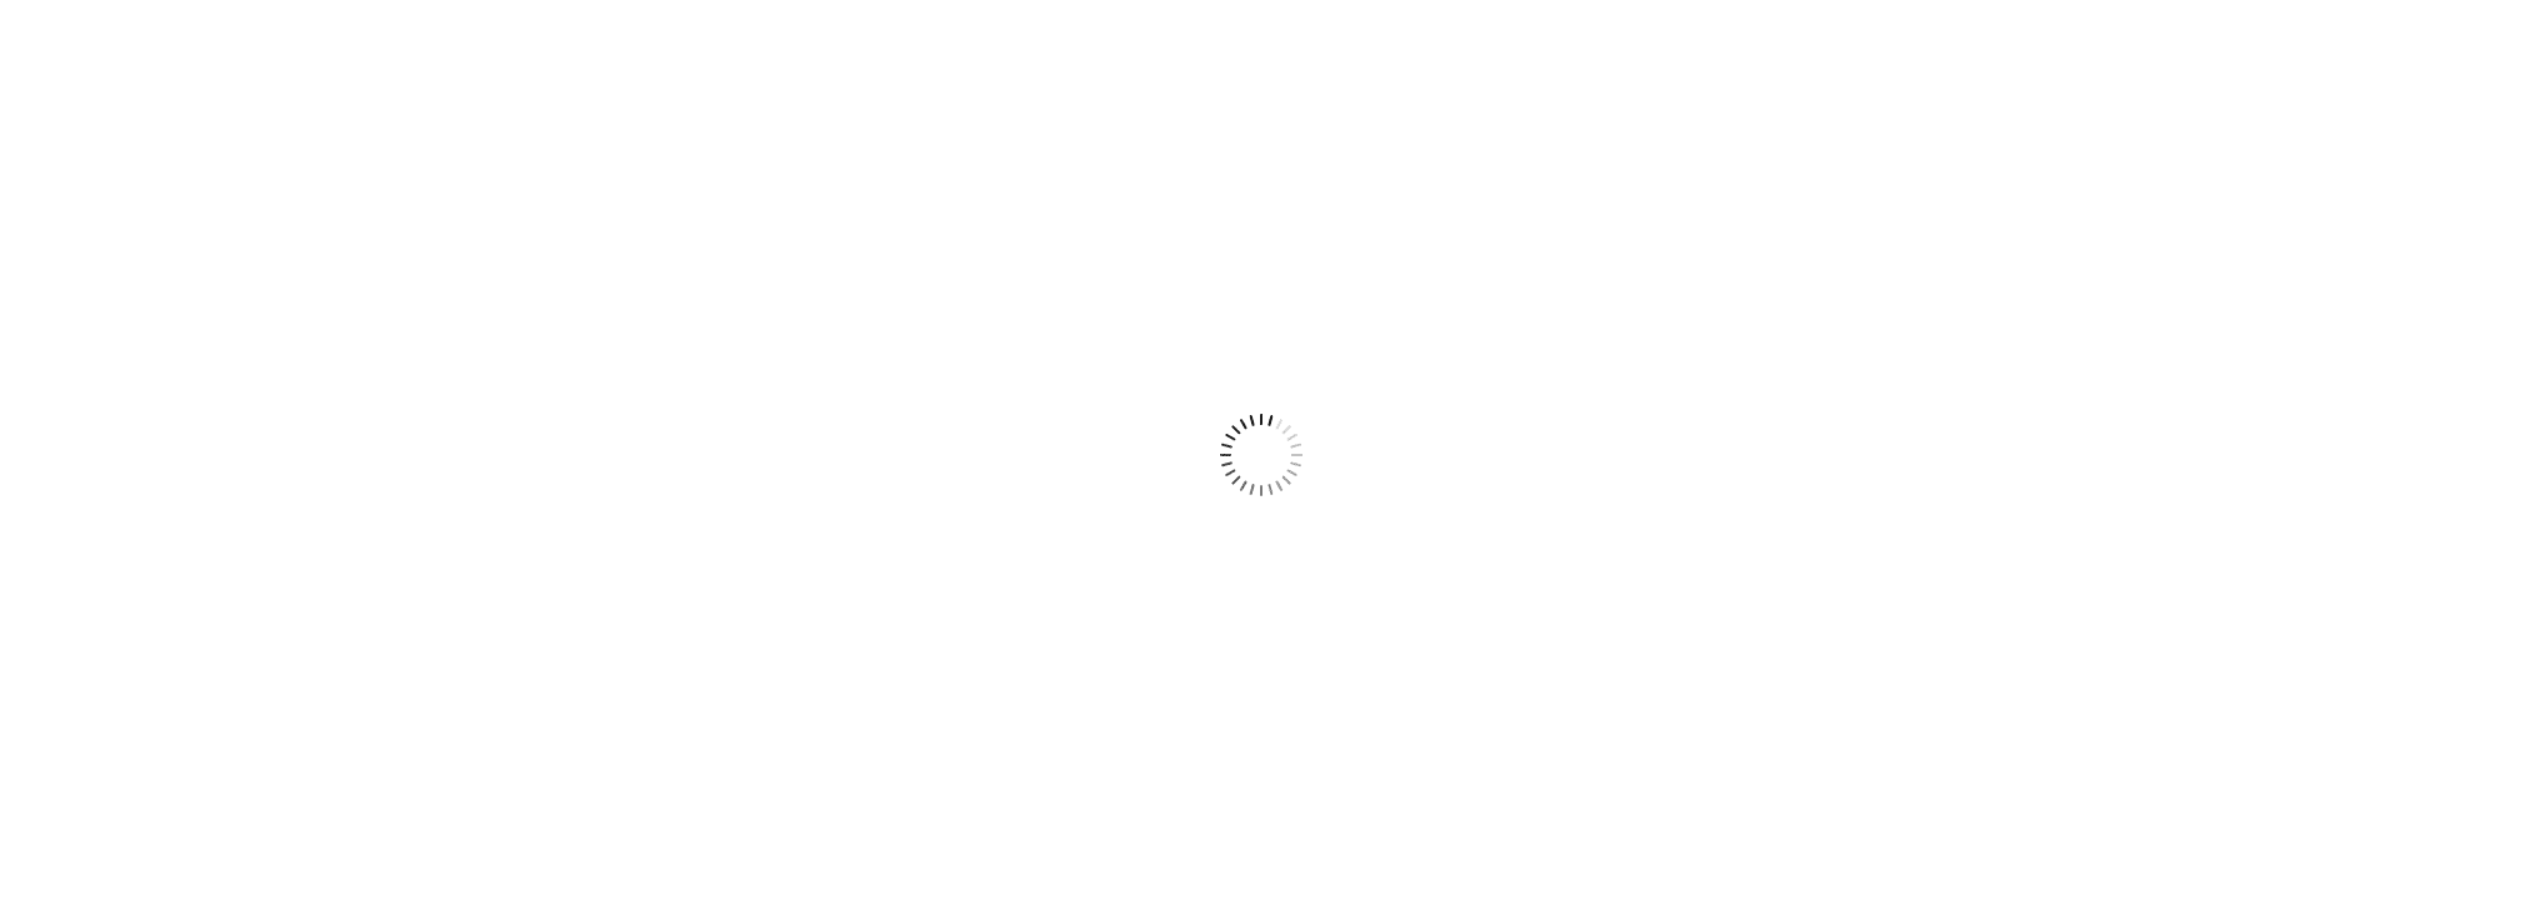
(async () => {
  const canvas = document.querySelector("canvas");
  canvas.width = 2521;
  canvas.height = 910;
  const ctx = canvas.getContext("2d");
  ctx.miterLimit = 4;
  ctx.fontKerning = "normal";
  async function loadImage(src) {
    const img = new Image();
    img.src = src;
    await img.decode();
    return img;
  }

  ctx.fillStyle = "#ffffff";
  ctx.fillRect(0, 0, 2521, 910);
  ctx.drawImage(await loadImage("img/1.png"), 1220, 413, 83, 84);
})();
